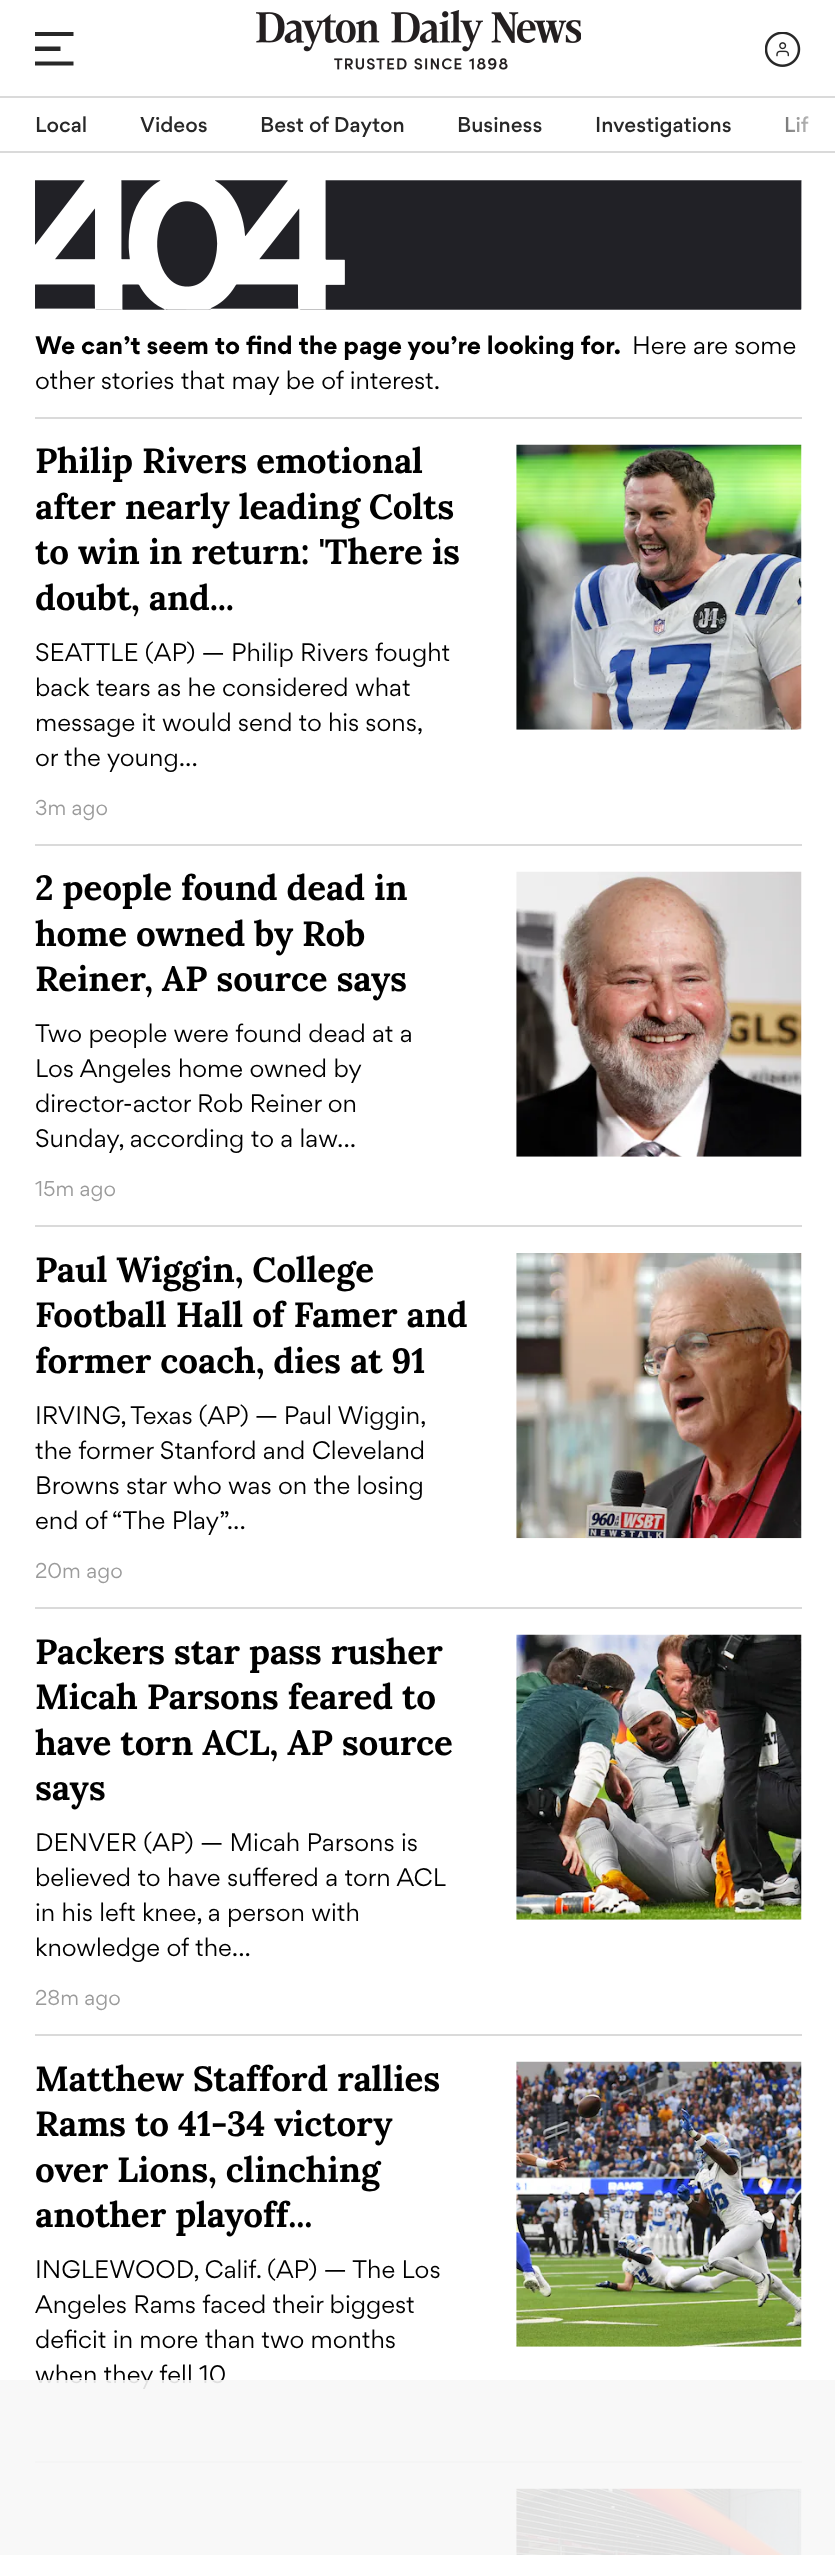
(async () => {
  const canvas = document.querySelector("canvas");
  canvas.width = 835;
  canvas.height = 2555;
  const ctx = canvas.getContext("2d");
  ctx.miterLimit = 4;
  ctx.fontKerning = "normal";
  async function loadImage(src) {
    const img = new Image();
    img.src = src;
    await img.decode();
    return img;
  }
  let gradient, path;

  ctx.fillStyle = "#ffffff";
  ctx.fillRect(0, 0, 835, 2555);
  ctx.save();
  ctx.beginPath();
  ctx.rect(35, 32, 39, 35);
  ctx.clip();
  ctx.fillStyle = "#282828";
  path = new Path2D("M35 31.5H73.5V36H35ZM35 46.5H60.5V51H35ZM35 61.5H73.5V65.5H35Z");
  ctx.fill(path);
  ctx.restore();
  ctx.drawImage(await loadImage("img/1.png"), 256, 10, 325, 60);
  ctx.drawImage(await loadImage("img/2.png"), 765, 32, 36, 35);
  for (const [x, y, w, h, color] of [
    [0, 96, 835, 2, "#dadada"],
    [0, 151, 835, 2, "#dadada"],
    [35, 417, 767, 2, "#dadada"],
  ]) {
    ctx.fillStyle = color;
    ctx.fillRect(x, y, w, h);
  }
  ctx.drawImage(await loadImage("img/3.png"), 35, 180, 767, 130);
  ctx.fillRect(35, 844, 767, 2);
  ctx.drawImage(await loadImage("img/4.png"), 516, 444, 286, 286);
  ctx.fillRect(35, 1225, 767, 2);
  ctx.drawImage(await loadImage("img/5.png"), 516, 871, 286, 286);
  ctx.fillRect(35, 1607, 767, 2);
  ctx.drawImage(await loadImage("img/6.png"), 516, 1253, 286, 286);
  ctx.fillRect(35, 2034, 767, 2);
  ctx.drawImage(await loadImage("img/7.png"), 516, 1634, 286, 286);
  ctx.fillRect(35, 2461, 767, 2);
  ctx.drawImage(await loadImage("img/8.png"), 516, 2061, 286, 286);
  ctx.drawImage(await loadImage("img/9.png"), 516, 2488, 286, 67);
  ctx.font = "500 19.25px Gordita";
  ctx.fillStyle = "#282828";
  for (const [text, x, y] of [
    ["Local", 35, 132],
    ["Videos", 140, 132],
    ["Best of Dayton", 260, 132],
    ["Business", 457, 132],
    ["Investigations", 595, 132],
    ["Lif", 784, 132],
  ]) {
    ctx.fillText(text, x, y);
  }
  gradient = ctx.createLinearGradient(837, 124, 753, 124);
  gradient.addColorStop(0, "#ffffff");
  gradient.addColorStop(1, "rgba(255, 255, 255, 0)");
  ctx.fillStyle = gradient;
  ctx.fillRect(785, 116, 24, 16);
  ctx.font = "bold 22.75px Gordita";
  ctx.fillStyle = "#000000";
  ctx.fillText("We can’t seem to find the page you’re looking for.", 35, 354);
  ctx.font = "22.75px Gordita";
  ctx.fillText("Here are some", 632, 354);
  ctx.fillText("other stories that may be of interest.", 35, 389);
  ctx.letterSpacing = "-0.15px";
  ctx.font = "bold 35px Lora";
  for (const [text, x, y] of [
    ["Philip Rivers emotional", 35, 473],
    ["after nearly leading Colts", 35, 519],
    ["to win in return: 'There is", 35, 564],
    ["doubt, and...", 35, 610],
  ]) {
    ctx.fillText(text, x, y);
  }
  ctx.letterSpacing = "0px";
  ctx.font = "22.75px Gordita";
  ctx.fillText("SEATTLE (AP) — Philip Rivers fought", 35, 661);
  ctx.fillText("back tears as he considered what", 35, 696);
  ctx.wordSpacing = "-0.25px";
  ctx.fillText("message it would send to his sons,", 35, 731);
  ctx.wordSpacing = "0px";
  ctx.fillText("or the young...", 35, 766);
  ctx.font = "19.25px Gordita";
  ctx.fillStyle = "#9b9b9b";
  ctx.fillText("3m ago", 35, 815);
  ctx.letterSpacing = "-0.15px";
  ctx.font = "bold 35px Lora";
  ctx.fillStyle = "#000000";
  for (const [text, x, y] of [
    ["2 people found dead in", 35, 900],
    ["home owned by Rob", 35, 946],
    ["Reiner, AP source says", 35, 991],
  ]) {
    ctx.fillText(text, x, y);
  }
  ctx.letterSpacing = "0px";
  ctx.font = "22.75px Gordita";
  for (const [text, x, y] of [
    ["Two people were found dead at a", 35, 1042],
    ["Los Angeles home owned by", 35, 1077],
    ["director-actor Rob Reiner on", 35, 1112],
    ["Sunday, according to a law...", 35, 1147],
  ]) {
    ctx.fillText(text, x, y);
  }
  ctx.font = "19.25px Gordita";
  ctx.fillStyle = "#9b9b9b";
  ctx.fillText("15m ago", 35, 1196);
  ctx.letterSpacing = "-0.15px";
  ctx.font = "bold 35px Lora";
  ctx.fillStyle = "#000000";
  for (const [text, x, y] of [
    ["Paul Wiggin, College", 35, 1282],
    ["Football Hall of Famer and", 35, 1327],
    ["former coach, dies at 91", 35, 1373],
  ]) {
    ctx.fillText(text, x, y);
  }
  ctx.letterSpacing = "0px";
  ctx.wordSpacing = "-0.5px";
  ctx.font = "22.75px Gordita";
  ctx.fillText("IRVING, Texas (AP) — Paul Wiggin,", 35, 1424);
  ctx.wordSpacing = "0px";
  for (const [text, x, y] of [
    ["the former Stanford and Cleveland", 35, 1459],
    ["Browns star who was on the losing", 35, 1494],
    ["end of “The Play”...", 35, 1529],
  ]) {
    ctx.fillText(text, x, y);
  }
  ctx.font = "19.25px Gordita";
  ctx.fillStyle = "#9b9b9b";
  ctx.fillText("20m ago", 35, 1578);
  ctx.letterSpacing = "-0.15px";
  ctx.font = "bold 35px Lora";
  ctx.fillStyle = "#000000";
  for (const [text, x, y] of [
    ["Packers star pass rusher", 35, 1664],
    ["Micah Parsons feared to", 35, 1709],
    ["have torn ACL, AP source", 35, 1755],
    ["says", 35, 1800],
  ]) {
    ctx.fillText(text, x, y);
  }
  ctx.letterSpacing = "0px";
  ctx.font = "22.75px Gordita";
  for (const [text, x, y] of [
    ["DENVER (AP) — Micah Parsons is", 35, 1851],
    ["believed to have suffered a torn ACL", 35, 1886],
    ["in his left knee, a person with", 35, 1921],
    ["knowledge of the...", 35, 1956],
  ]) {
    ctx.fillText(text, x, y);
  }
  ctx.font = "19.25px Gordita";
  ctx.fillStyle = "#9b9b9b";
  ctx.fillText("28m ago", 35, 2005);
  ctx.letterSpacing = "-0.15px";
  ctx.font = "bold 35px Lora";
  ctx.fillStyle = "#000000";
  for (const [text, x, y] of [
    ["Matthew Stafford rallies", 35, 2091],
    ["Rams to 41-34 victory", 35, 2136],
    ["over Lions, clinching", 35, 2182],
    ["another playoff...", 35, 2227],
  ]) {
    ctx.fillText(text, x, y);
  }
  ctx.letterSpacing = "0px";
  ctx.font = "22.75px Gordita";
  for (const [text, x, y] of [
    ["INGLEWOOD, Calif. (AP) — The Los", 35, 2278],
    ["Angeles Rams faced their biggest", 35, 2313],
    ["deficit in more than two months", 35, 2348],
    ["when they fell 10", 35, 2383],
  ]) {
    ctx.fillText(text, x, y);
  }
  ctx.fillStyle = "rgba(247, 247, 247, 0.9)";
  ctx.fillRect(0, 2380, 835, 175);
})();
